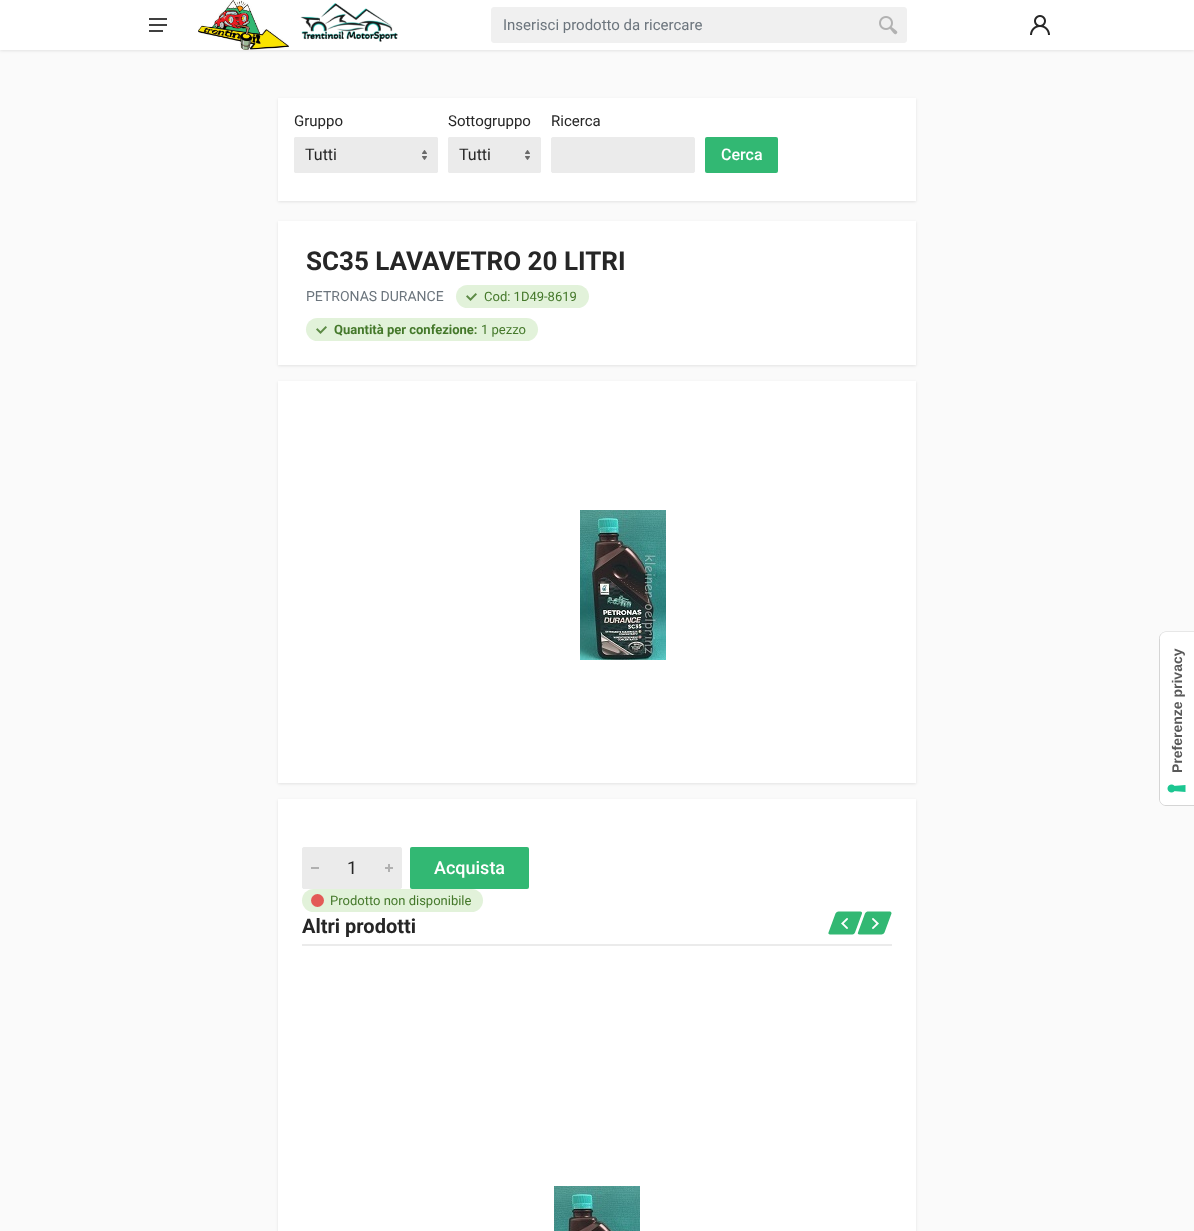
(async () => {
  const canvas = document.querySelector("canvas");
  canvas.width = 1194;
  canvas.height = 1231;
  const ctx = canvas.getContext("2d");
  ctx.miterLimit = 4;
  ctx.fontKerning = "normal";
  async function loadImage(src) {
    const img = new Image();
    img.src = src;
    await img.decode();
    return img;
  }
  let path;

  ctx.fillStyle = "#fafafa";
  ctx.fillRect(0, 0, 1194, 1231);
  ctx.fillStyle = "rgba(0, 0, 0, 0.09)";
  ctx.filter = "blur(1.5px)";
  ctx.beginPath();
  ctx.rect(0, 1, 1194, 50);
  ctx.fill();
  ctx.filter = "none";
  ctx.fillStyle = "#ffffff";
  ctx.fillRect(0, 0, 1194, 50);
  ctx.drawImage(await loadImage("img/1.png"), 149, 18, 18, 14);
  ctx.drawImage(await loadImage("img/2.png"), 198, 0, 91, 50);
  ctx.drawImage(await loadImage("img/3.png"), 300, 3, 98, 39);
  ctx.fillStyle = "#f0f0f0";
  ctx.beginPath();
  ctx.roundRect(491.5, 7.5, 415, 35, 2.5);
  ctx.fill();
  ctx.strokeStyle = "#f0f0f0";
  ctx.stroke();
  ctx.drawImage(await loadImage("img/4.png"), 879, 16, 19, 19);
  ctx.drawImage(await loadImage("img/5.png"), 1030, 15, 20, 20);
  ctx.fillStyle = "rgba(0, 0, 0, 0.09)";
  ctx.filter = "blur(1.5px)";
  ctx.beginPath();
  ctx.rect(278, 99, 638, 103);
  ctx.fill();
  ctx.filter = "none";
  ctx.fillStyle = "#ffffff";
  ctx.fillRect(278, 98, 638, 103);
  ctx.fillStyle = "#ebebeb";
  ctx.beginPath();
  ctx.roundRect(294, 137, 144, 36, 2);
  ctx.fill();
  ctx.drawImage(await loadImage("img/6.png"), 422, 150, 5, 10);
  ctx.beginPath();
  ctx.roundRect(294.5, 137.5, 143, 35, 1.5);
  ctx.strokeStyle = "#ebebeb";
  ctx.stroke();
  ctx.beginPath();
  ctx.roundRect(448, 137, 93, 36, 2);
  ctx.fill();
  ctx.drawImage(await loadImage("img/6.png"), 525, 150, 5, 10);
  ctx.beginPath();
  ctx.roundRect(448.5, 137.5, 92, 35, 1.5);
  ctx.stroke();
  ctx.beginPath();
  ctx.roundRect(551.5, 137.5, 143, 35, 1.5);
  ctx.fill();
  ctx.stroke();
  ctx.fillStyle = "#32b873";
  ctx.beginPath();
  ctx.roundRect(705, 137, 73, 36, 2);
  ctx.fill();
  ctx.fillStyle = "rgba(0, 0, 0, 0.09)";
  ctx.filter = "blur(1.5px)";
  ctx.beginPath();
  ctx.rect(278, 222, 638, 144);
  ctx.fill();
  ctx.filter = "none";
  ctx.fillStyle = "#ffffff";
  ctx.fillRect(278, 221, 638, 144);
  ctx.fillStyle = "#e2f2da";
  ctx.beginPath();
  ctx.roundRect(456, 285, 133, 23, 11.5);
  ctx.fill();
  ctx.drawImage(await loadImage("img/7.png"), 466, 293, 11, 8);
  ctx.beginPath();
  ctx.roundRect(306, 318, 232, 23, 11.5);
  ctx.fill();
  ctx.drawImage(await loadImage("img/7.png"), 316, 326, 11, 8);
  ctx.fillStyle = "rgba(0, 0, 0, 0.09)";
  ctx.filter = "blur(1.5px)";
  ctx.beginPath();
  ctx.rect(278, 382, 638, 402);
  ctx.fill();
  ctx.filter = "none";
  ctx.fillStyle = "#ffffff";
  ctx.fillRect(278, 381, 638, 402);
  ctx.drawImage(await loadImage("img/8.png"), 580, 510, 86, 150);
  ctx.fillStyle = "rgba(0, 0, 0, 0.09)";
  ctx.filter = "blur(1.5px)";
  ctx.beginPath();
  ctx.rect(278, 800, 638, 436);
  ctx.fill();
  ctx.filter = "none";
  ctx.fillStyle = "#ffffff";
  ctx.fillRect(278, 799, 638, 432);
  ctx.fillStyle = "#ebebeb";
  ctx.beginPath();
  ctx.roundRect(302.5, 847.5, 99, 41, 1.5);
  ctx.fill();
  ctx.stroke();
  for (const [x, y, w, h, color] of [
    [311, 867, 8, 2, "#b0b0b0"],
    [385, 867, 8, 2, "#b0b0b0"],
    [388, 864, 2, 8, "#b0b0b0"],
  ]) {
    ctx.fillStyle = color;
    ctx.fillRect(x, y, w, h);
  }
  ctx.fillStyle = "#32b873";
  ctx.beginPath();
  ctx.roundRect(410, 847, 119, 42, 2);
  ctx.fill();
  ctx.fillStyle = "#e2f2da";
  ctx.beginPath();
  ctx.roundRect(302, 889, 181, 23, 11.5);
  ctx.fill();
  ctx.fillStyle = "#e35a56";
  ctx.beginPath();
  ctx.arc(317.5, 900.5, 6.5, 0, Math.PI * 2);
  ctx.fill();
  ctx.fillStyle = "#32b873";
  path = new Path2D("M838.5 911.5H860.5C861.5 911.5 862.5 912.5 862 913.5L855 932.5C854.5 933.5 853.5 934.5 852.5 934.5H830C829 934.5 828 933.5 828.5 932.5L835.5 913.5C836 912.5 837 911.5 838.5 911.5Z");
  ctx.fill(path);
  ctx.drawImage(await loadImage("img/9.png"), 841, 918, 7, 11);
  path = new Path2D("M867.5 911.5H890C891 911.5 891.5 912.5 891.5 913.5L884.5 932.5C884 933.5 882.5 934.5 881.5 934.5H859.5C858 934.5 857.5 933.5 858 932.5L865 913.5C865.5 912.5 866.5 911.5 867.5 911.5Z");
  ctx.fill(path);
  ctx.drawImage(await loadImage("img/10.png"), 872, 918, 7, 11);
  ctx.fillStyle = "#ebebeb";
  ctx.fillRect(302, 944, 590, 2);
  ctx.drawImage(await loadImage("img/11.png"), 554, 1186, 86, 45);
  path = new Path2D("M1159.5 799V638.5C1159.5 635 1162.5 632 1166 632H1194.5V805.5H1166C1162.5 805.5 1159.5 802.5 1159.5 799Z");
  ctx.strokeStyle = "#d5d5d5";
  ctx.stroke(path);
  ctx.fillStyle = "#ffffff";
  path = new Path2D("M1160 799V638C1160 635 1163 632 1166 632H1194V805H1166C1163 805 1160 802 1160 799Z");
  ctx.fill(path);
  ctx.drawImage(await loadImage("img/12.png"), 1167, 784, 19, 9);
  ctx.font = "15px Roboto";
  ctx.fillStyle = "#6c757d";
  ctx.fillText("Inserisci prodotto da ricercare", 503, 30);
  ctx.fillStyle = "#262626";
  ctx.fillText("Gruppo", 294, 126);
  ctx.font = "16px Roboto";
  ctx.fillText("Tutti", 305, 160);
  ctx.font = "15px Roboto";
  ctx.fillText("Sottogruppo", 448, 126);
  ctx.font = "16px Roboto";
  ctx.fillText("Tutti", 459, 160);
  ctx.font = "15px Roboto";
  ctx.fillText("Ricerca", 551, 126);
  ctx.font = "500 16px Roboto";
  ctx.fillStyle = "#ffffff";
  ctx.fillText("Cerca", 721, 160);
  ctx.font = "bold 26px Roboto";
  ctx.fillStyle = "#262626";
  ctx.fillText("SC35 LAVAVETRO 20 LITRI", 306, 270);
  ctx.font = "14px Roboto";
  ctx.fillStyle = "#6c757d";
  ctx.fillText("PETRONAS DURANCE", 306, 301);
  ctx.font = "13px Roboto";
  ctx.fillStyle = "#44782a";
  ctx.fillText("Cod: 1D49-8619", 484, 301);
  ctx.font = "bold 13px Roboto";
  ctx.fillText("Quantità per confezione:", 334, 334);
  ctx.font = "13px Roboto";
  ctx.fillText("1 pezzo", 481, 334);
  ctx.font = "18px Roboto";
  ctx.fillStyle = "#262626";
  ctx.fillText("1", 347, 874);
  ctx.font = "500 18px Roboto";
  ctx.fillStyle = "#ffffff";
  ctx.fillText("Acquista", 434, 874);
  ctx.font = "13px Roboto";
  ctx.fillStyle = "#44782a";
  ctx.fillText("Prodotto non disponibile", 330, 905);
  ctx.font = "bold 20px Roboto";
  ctx.fillStyle = "#262626";
  ctx.fillText("Altri prodotti", 302, 933);
  ctx.font = "bold 14px Liberation Sans";
  ctx.fillStyle = "#595959";
  ctx.save();
  ctx.translate(1182, 773);
  ctx.rotate(-90 * Math.PI / 180);
  ctx.fillText("Preferenze privacy", 0, 0);
  ctx.restore();
})();
